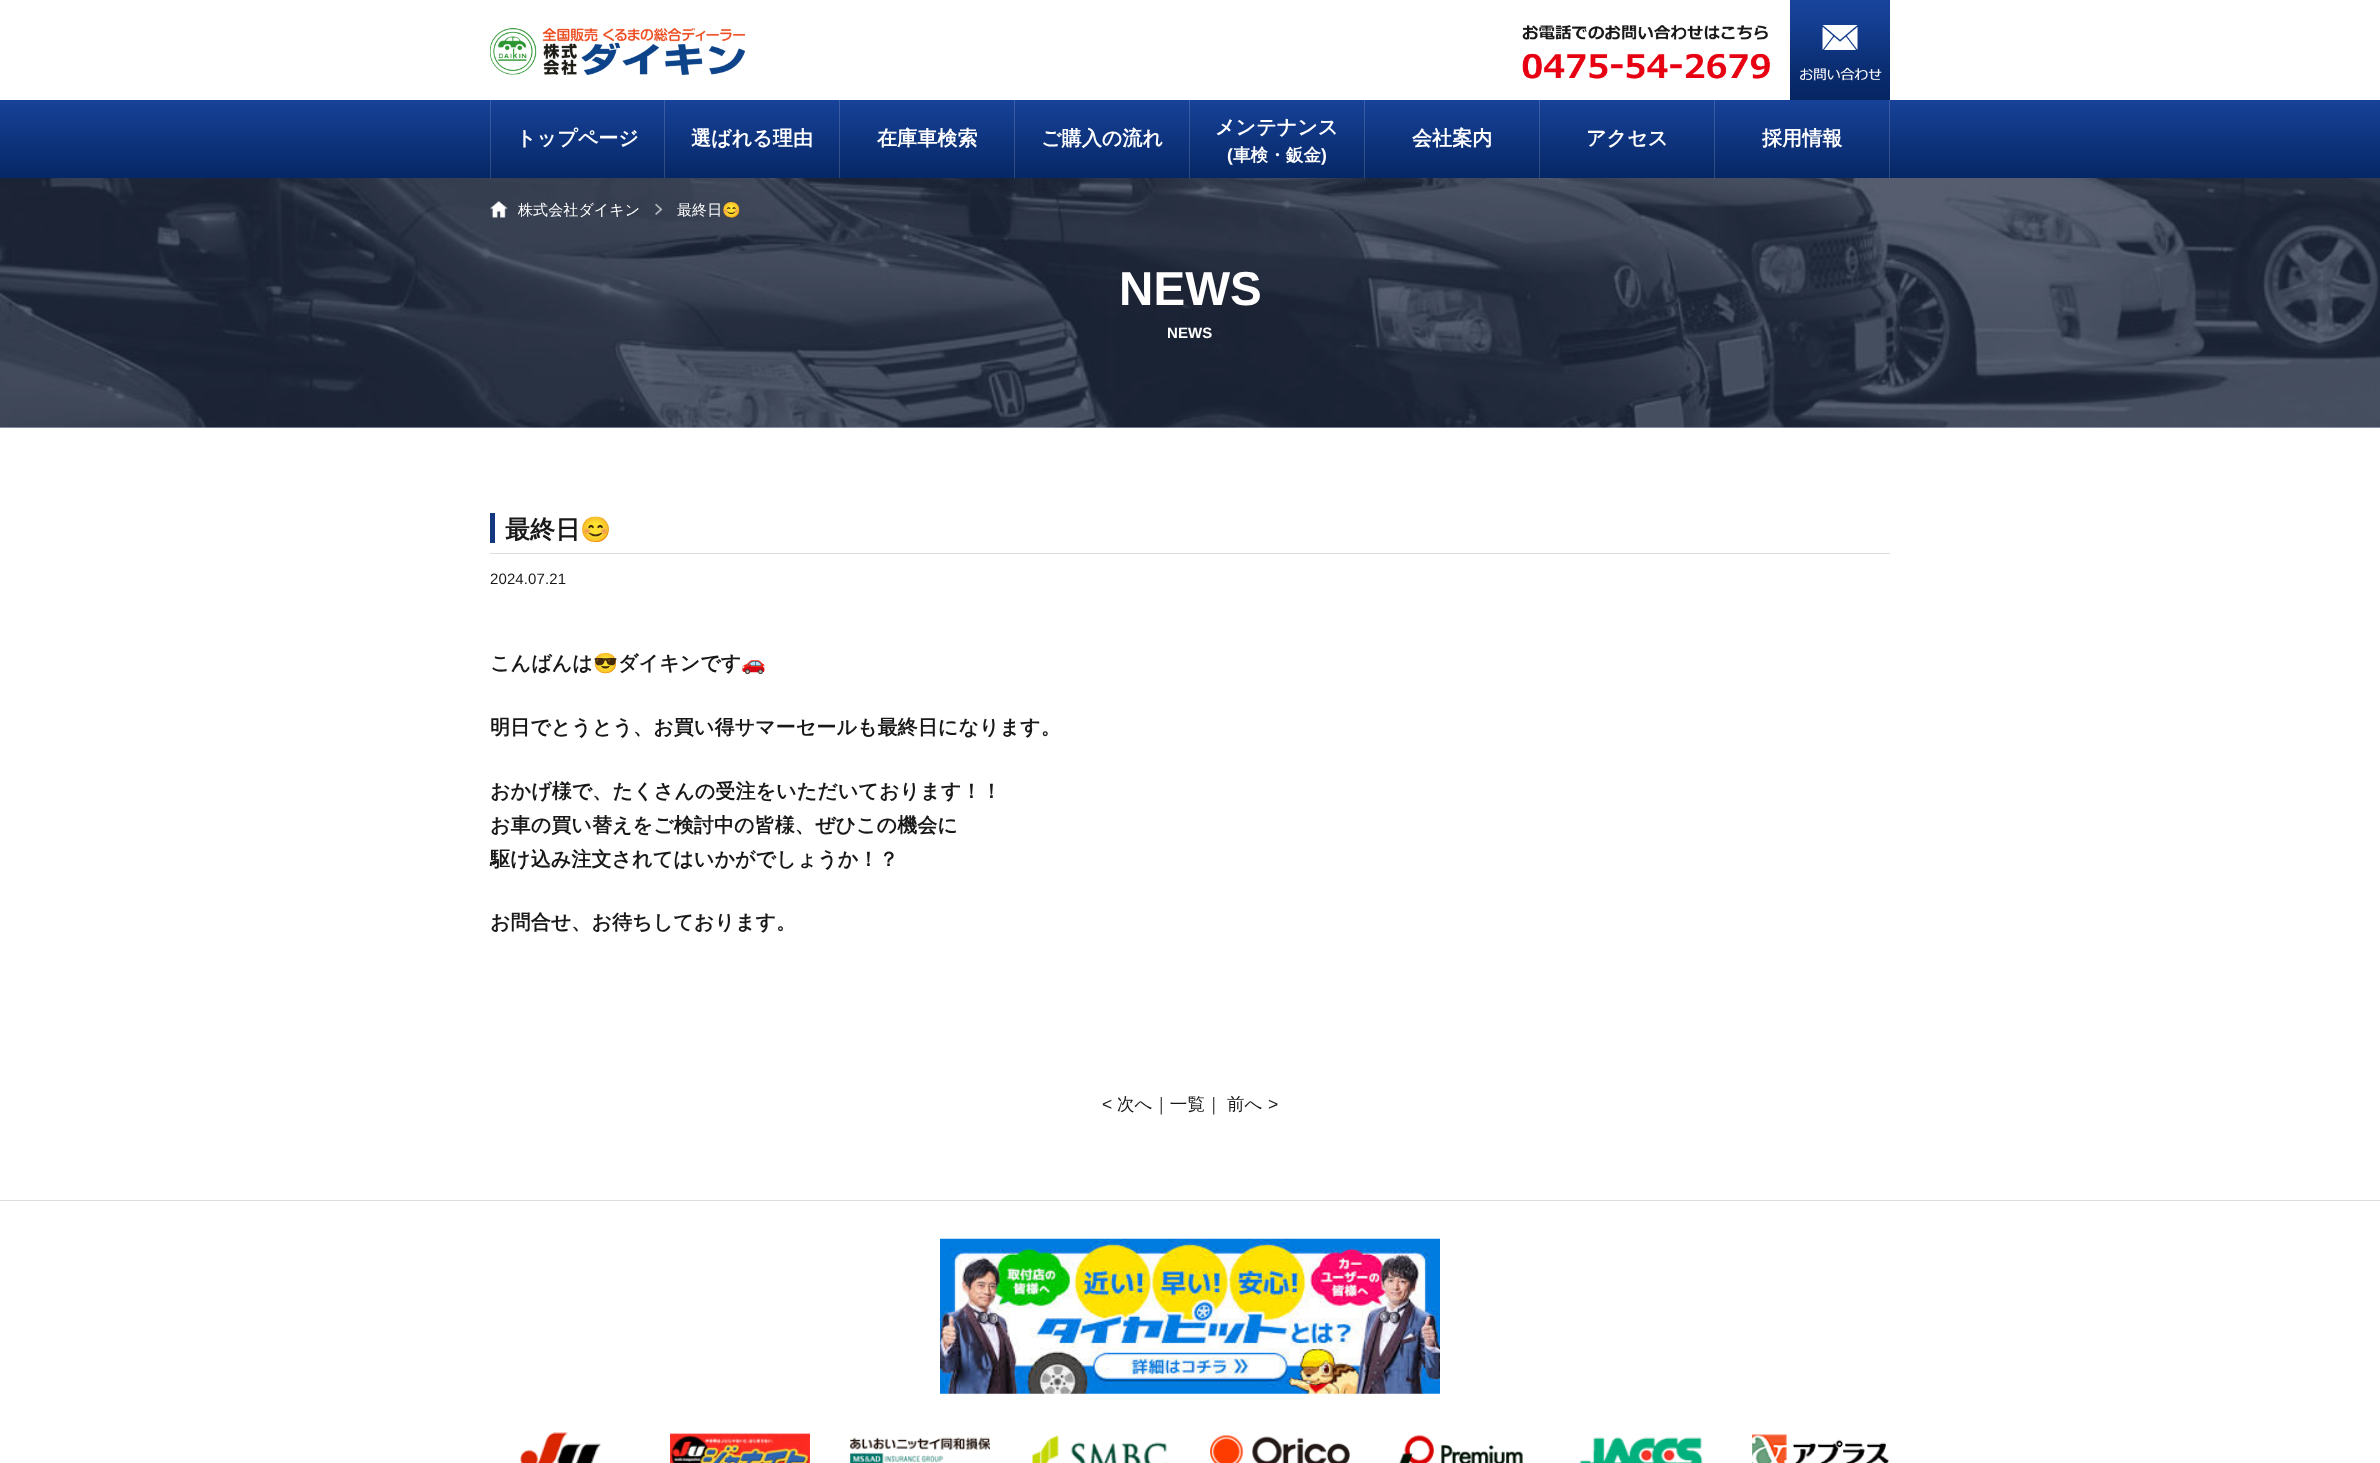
(async () => {
  const canvas = document.querySelector("canvas");
  canvas.width = 2380;
  canvas.height = 1463;
  const ctx = canvas.getContext("2d");
  ctx.miterLimit = 4;
  ctx.fontKerning = "normal";
  async function loadImage(src) {
    const img = new Image();
    img.src = src;
    await img.decode();
    return img;
  }
  let gradient;

  ctx.fillStyle = "#ffffff";
  ctx.fillRect(0, 0, 2380, 1463);
  ctx.fillStyle = "#c7cfe0";
  ctx.fillRect(0, 427, 2380, 1);
  ctx.drawImage(await loadImage("img/1.png"), 490, 28, 255, 47);
  ctx.drawImage(await loadImage("img/2.png"), 1522, 25, 248, 54);
  ctx.drawImage(await loadImage("img/3.png"), 1790, 0, 100, 100);
  gradient = ctx.createLinearGradient(1190, 100, 1190, 178);
  gradient.addColorStop(0, "#174299");
  gradient.addColorStop(1, "#062765");
  ctx.fillStyle = gradient;
  ctx.fillRect(0, 100, 2380, 78);
  for (const [x, y, w, h, color] of [
    [664, 100, 1, 78, "rgba(255, 255, 255, 0.16)"],
    [490, 100, 1, 78, "rgba(255, 255, 255, 0.16)"],
    [839, 100, 1, 78, "rgba(255, 255, 255, 0.16)"],
    [1014, 100, 1, 78, "rgba(255, 255, 255, 0.16)"],
    [1189, 100, 1, 78, "rgba(255, 255, 255, 0.16)"],
    [1364, 100, 1, 78, "rgba(255, 255, 255, 0.16)"],
    [1539, 100, 1, 78, "rgba(255, 255, 255, 0.16)"],
    [1714, 100, 1, 78, "rgba(255, 255, 255, 0.16)"],
    [1889, 100, 1, 78, "rgba(255, 255, 255, 0.16)"],
  ]) {
    ctx.fillStyle = color;
    ctx.fillRect(x, y, w, h);
  }
  ctx.drawImage(await loadImage("img/4.png"), 0, 178, 2380, 250);
  ctx.drawImage(await loadImage("img/5.png"), 490, 201, 18, 17);
  ctx.drawImage(await loadImage("img/6.png"), 655, 203, 8, 12);
  for (const [x, y, w, h, color] of [
    [490, 553, 1400, 1, "#dddddd"],
    [490, 513, 5, 30, "#14387f"],
    [0, 1200, 2380, 1, "#dddddd"],
  ]) {
    ctx.fillStyle = color;
    ctx.fillRect(x, y, w, h);
  }
  ctx.drawImage(await loadImage("img/7.png"), 940, 1238, 500, 156);
  ctx.drawImage(await loadImage("img/8.png"), 519, 1432, 83, 31);
  ctx.drawImage(await loadImage("img/9.png"), 670, 1433, 140, 30);
  ctx.drawImage(await loadImage("img/10.png"), 850, 1437, 140, 26);
  ctx.drawImage(await loadImage("img/11.png"), 1032, 1435, 135, 28);
  ctx.drawImage(await loadImage("img/12.png"), 1210, 1435, 140, 28);
  ctx.drawImage(await loadImage("img/13.png"), 1399, 1435, 124, 28);
  ctx.drawImage(await loadImage("img/14.png"), 1579, 1437, 124, 26);
  ctx.drawImage(await loadImage("img/15.png"), 1752, 1434, 137, 29);
  ctx.letterSpacing = "0.1px";
  ctx.font = "bold 20px WenQuanYi Zen Hei";
  ctx.fillStyle = "#ffffff";
  for (const [text, x, y] of [
    ["トップページ", 516, 145],
    ["選ばれる理由", 691, 145],
    ["在庫車検索", 877, 145],
    ["ご購入の流れ", 1041, 145],
    ["メンテナンス", 1215, 134],
  ]) {
    ctx.fillText(text, x, y);
  }
  ctx.font = "bold 17.5px Liberation Sans";
  ctx.fillText("(", 1227, 161);
  ctx.font = "bold 17.5px WenQuanYi Zen Hei";
  ctx.fillText("車検・鈑金", 1233, 161);
  ctx.font = "bold 17.5px Liberation Sans";
  ctx.fillText(")", 1321, 161);
  ctx.font = "bold 20px WenQuanYi Zen Hei";
  for (const [text, x, y] of [
    ["会社案内", 1412, 145],
    ["アクセス", 1586, 145],
    ["採用情報", 1762, 145],
  ]) {
    ctx.fillText(text, x, y);
  }
  ctx.font = "500 15px WenQuanYi Zen Hei";
  ctx.fillText("株式会社ダイキン", 518, 215);
  ctx.fillText("最終日", 677, 215);
  ctx.font = "15px Noto Color Emoji";
  ctx.fillText("😊", 722, 215);
  ctx.font = "bold 47.5px Liberation Sans";
  ctx.fillText("NEWS", 1119, 305);
  ctx.font = "bold 15px Liberation Sans";
  ctx.fillText("NEWS", 1167, 338);
  ctx.font = "bold 25px WenQuanYi Zen Hei";
  ctx.fillStyle = "#181818";
  ctx.fillText("最終日", 505, 538);
  ctx.font = "bold 25px Noto Color Emoji";
  ctx.fillText("😊", 580, 538);
  ctx.font = "15px Liberation Sans";
  ctx.fillText("2024.07.21", 490, 584);
  ctx.font = "bold 20px WenQuanYi Zen Hei";
  ctx.fillText("こんばんは", 490, 670);
  ctx.font = "bold 20px Noto Color Emoji";
  ctx.fillText("😎", 593, 670);
  ctx.font = "bold 20px WenQuanYi Zen Hei";
  ctx.fillText("ダイキンです", 618, 670);
  ctx.font = "bold 20px Noto Color Emoji";
  ctx.fillText("🚗", 741, 670);
  ctx.font = "bold 20px WenQuanYi Zen Hei";
  for (const [text, x, y] of [
    ["明日でとうとう、お買い得サマーセールも最終日になります。", 490, 734],
    ["おかげ様で、たくさんの受注をいただいております！！", 490, 798],
    ["お車の買い替えをご検討中の皆様、ぜひこの機会に", 490, 832],
    ["駆け込み注文されてはいかがでしょうか！？", 490, 866],
    ["お問合せ、お待ちしております。", 490, 929],
  ]) {
    ctx.fillText(text, x, y);
  }
  ctx.font = "17.5px Liberation Sans";
  ctx.fillText("<", 1102, 1110);
  ctx.font = "500 17.5px WenQuanYi Zen Hei";
  ctx.fillText("次へ｜一覧｜", 1117, 1110);
  ctx.fillText("前へ", 1227, 1110);
  ctx.font = "17.5px Liberation Sans";
  ctx.fillText(">", 1268, 1110);
})();
